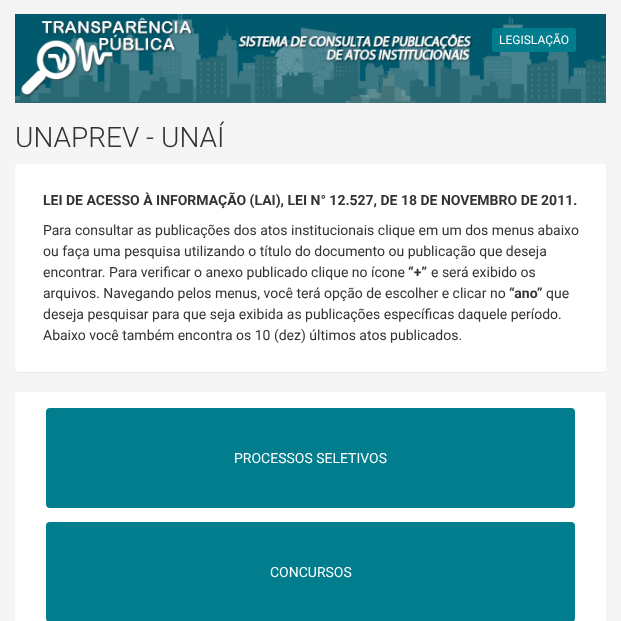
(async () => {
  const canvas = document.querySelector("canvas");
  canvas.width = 621;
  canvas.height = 621;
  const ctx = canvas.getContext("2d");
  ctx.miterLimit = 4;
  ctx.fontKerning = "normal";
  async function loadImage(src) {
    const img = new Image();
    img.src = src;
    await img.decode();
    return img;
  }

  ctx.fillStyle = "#f5f5f5";
  ctx.fillRect(0, 0, 621, 621);
  ctx.drawImage(await loadImage("img/1.png"), 15, 14, 591, 89);
  ctx.fillStyle = "#027d8e";
  ctx.beginPath();
  ctx.roundRect(493, 29, 82, 22, 2);
  ctx.fill();
  ctx.strokeStyle = "#027d8e";
  ctx.lineWidth = 2;
  ctx.stroke();
  ctx.fillStyle = "rgba(0, 0, 0, 0.05)";
  ctx.filter = "blur(0.5px)";
  ctx.beginPath();
  ctx.roundRect(15, 165, 591, 208, 4);
  ctx.fill();
  ctx.filter = "none";
  ctx.fillStyle = "#ffffff";
  ctx.beginPath();
  ctx.roundRect(15, 164, 591, 208, 4);
  ctx.fill();
  ctx.beginPath();
  ctx.roundRect(15, 392, 591, 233, 4);
  ctx.fill();
  ctx.fillStyle = "#027d8e";
  ctx.beginPath();
  ctx.roundRect(47, 409, 527, 98, 3);
  ctx.fill();
  ctx.stroke();
  ctx.beginPath();
  ctx.roundRect(47, 523, 527, 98, 3);
  ctx.fill();
  ctx.stroke();
  ctx.font = "12px Roboto";
  ctx.fillStyle = "#ffffff";
  ctx.fillText("LEGISLAÇÃO", 499, 44);
  ctx.font = "300 28px Roboto";
  ctx.fillStyle = "#333333";
  ctx.fillText("UNAPREV - UNAÍ", 15, 147);
  ctx.font = "bold 14px Roboto";
  ctx.fillText("LEI DE ACESSO À INFORMAÇÃO (LAI), LEI N° 12.527, DE 18 DE NOVEMBRO DE 2011.", 43, 205);
  ctx.font = "14px Roboto";
  for (const [text, x, y] of [
    ["Para consultar as publicações dos atos institucionais clique em um dos menus abaixo", 43, 235],
    ["ou faça uma pesquisa utilizando o título do documento ou publicação que deseja", 43, 256],
    ["encontrar. Para verificar o anexo publicado clique no ícone", 43, 277],
  ]) {
    ctx.fillText(text, x, y);
  }
  ctx.font = "bold 14px Roboto";
  ctx.fillText("“+”", 408, 277);
  ctx.font = "14px Roboto";
  ctx.fillText("e será exibido os", 431, 277);
  ctx.fillText("arquivos. Navegando pelos menus, você terá opção de escolher e clicar no", 43, 298);
  ctx.font = "bold 14px Roboto";
  ctx.fillText("“ano”", 509, 298);
  ctx.font = "14px Roboto";
  for (const [text, x, y] of [
    ["que", 546, 298],
    ["deseja pesquisar para que seja exibida as publicações específicas daquele período.", 43, 319],
    ["Abaixo você também encontra os 10 (dez) últimos atos publicados.", 43, 340],
  ]) {
    ctx.fillText(text, x, y);
  }
  ctx.fillStyle = "#ffffff";
  ctx.fillText("PROCESSOS SELETIVOS", 234, 463);
  ctx.fillText("CONCURSOS", 270, 577);
})();
